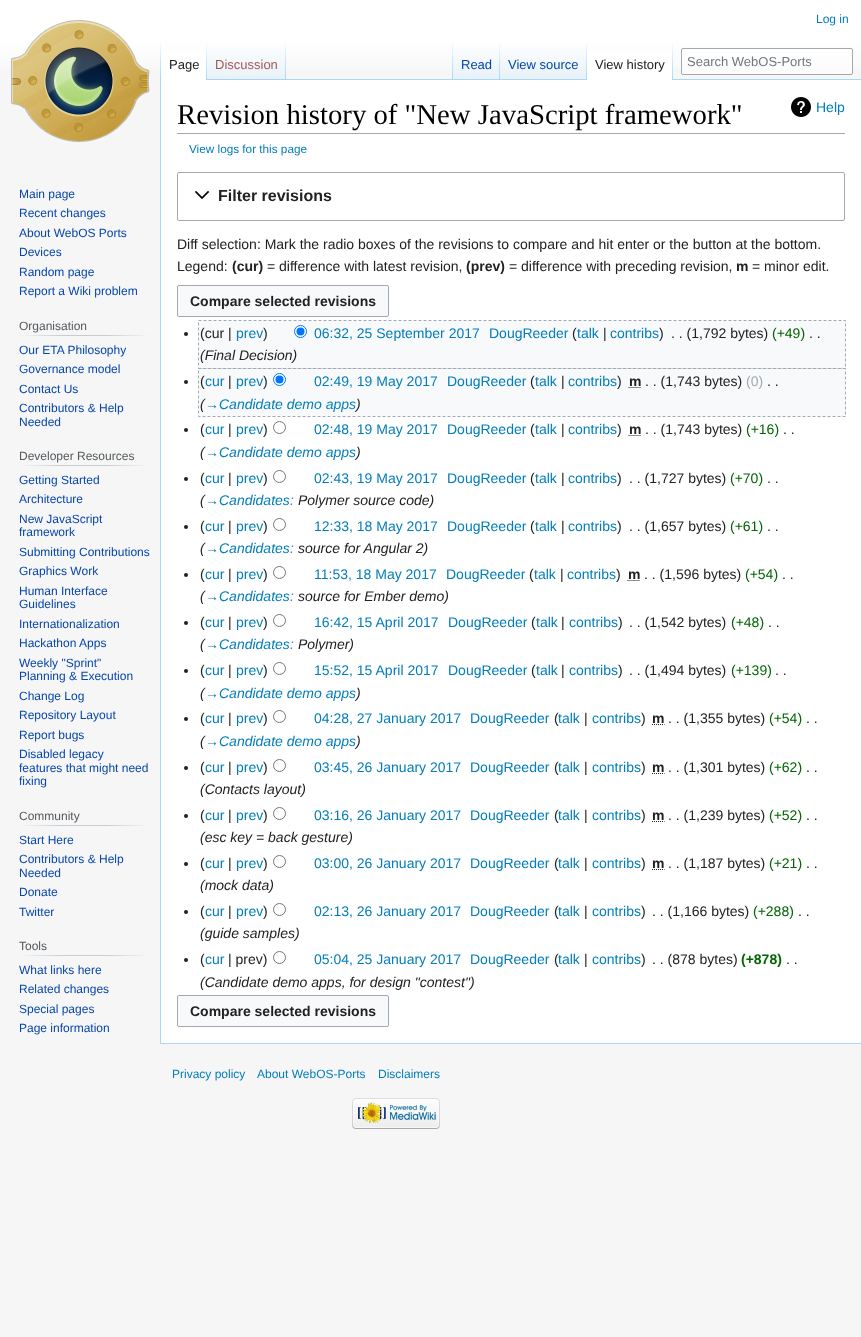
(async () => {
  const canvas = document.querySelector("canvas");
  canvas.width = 861;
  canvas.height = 1337;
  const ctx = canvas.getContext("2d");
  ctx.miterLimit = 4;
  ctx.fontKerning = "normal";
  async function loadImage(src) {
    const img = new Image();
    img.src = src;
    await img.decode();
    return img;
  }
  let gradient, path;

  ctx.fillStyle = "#f6f6f6";
  ctx.fillRect(0, 0, 861, 1337);
  gradient = ctx.createLinearGradient(431, 0, 431, 80);
  gradient.addColorStop(0.5, "#ffffff");
  gradient.addColorStop(1, "#f6f6f6");
  ctx.fillStyle = gradient;
  ctx.fillRect(0, 0, 861, 69);
  ctx.fillStyle = "#a7d7f9";
  ctx.fillRect(160, 1043, 701, 1);
  ctx.fillRect(160, 79, 1, 965);
  gradient = ctx.createLinearGradient(161, 40, 161, 80);
  gradient.addColorStop(0, "rgba(167, 215, 249, 0)");
  gradient.addColorStop(1, "#a7d7f9");
  ctx.fillStyle = gradient;
  ctx.fillRect(160, 40, 1, 40);
  ctx.fillStyle = "#ffffff";
  ctx.fillRect(161, 51, 45, 29);
  gradient = ctx.createLinearGradient(207, 40, 207, 80);
  gradient.addColorStop(0, "#ffffff");
  gradient.addColorStop(1, "#a7d7f9");
  ctx.fillStyle = gradient;
  ctx.fillRect(206, 40, 1, 40);
  gradient = ctx.createLinearGradient(247, 80, 247, 40);
  gradient.addColorStop(0, "#77c1f6");
  gradient.addColorStop(0.03, "#e8f2f8");
  gradient.addColorStop(1, "#ffffff");
  ctx.fillStyle = gradient;
  ctx.fillRect(207, 46, 79, 34);
  gradient = ctx.createLinearGradient(286, 40, 286, 80);
  gradient.addColorStop(0, "rgba(167, 215, 249, 0)");
  gradient.addColorStop(1, "#a7d7f9");
  ctx.fillStyle = gradient;
  ctx.fillRect(285, 40, 1, 40);
  ctx.fillStyle = "#a7d7f9";
  ctx.fillRect(286, 79, 575, 1);
  gradient = ctx.createLinearGradient(453, 40, 453, 80);
  gradient.addColorStop(0, "rgba(167, 215, 249, 0)");
  gradient.addColorStop(1, "#a7d7f9");
  ctx.fillStyle = gradient;
  ctx.fillRect(452, 40, 1, 40);
  gradient = ctx.createLinearGradient(477, 80, 477, 40);
  gradient.addColorStop(0, "#77c1f6");
  gradient.addColorStop(0.03, "#e8f2f8");
  gradient.addColorStop(1, "#ffffff");
  ctx.fillStyle = gradient;
  ctx.fillRect(453, 46, 47, 33);
  gradient = ctx.createLinearGradient(500, 40, 500, 80);
  gradient.addColorStop(0, "rgba(167, 215, 249, 0)");
  gradient.addColorStop(1, "#a7d7f9");
  ctx.fillStyle = gradient;
  ctx.fillRect(499, 40, 1, 40);
  gradient = ctx.createLinearGradient(544, 80, 544, 40);
  gradient.addColorStop(0, "#77c1f6");
  gradient.addColorStop(0.03, "#e8f2f8");
  gradient.addColorStop(1, "#ffffff");
  ctx.fillStyle = gradient;
  ctx.fillRect(500, 46, 87, 33);
  gradient = ctx.createLinearGradient(587, 40, 587, 80);
  gradient.addColorStop(0, "rgba(167, 215, 249, 0)");
  gradient.addColorStop(1, "#a7d7f9");
  ctx.fillStyle = gradient;
  ctx.fillRect(586, 40, 1, 40);
  ctx.fillStyle = "#ffffff";
  ctx.fillRect(587, 51, 85, 29);
  gradient = ctx.createLinearGradient(673, 40, 673, 80);
  gradient.addColorStop(0, "#ffffff");
  gradient.addColorStop(1, "#a7d7f9");
  ctx.fillStyle = gradient;
  ctx.fillRect(672, 40, 1, 40);
  ctx.fillStyle = "rgba(255, 255, 255, 0.5)";
  ctx.beginPath();
  ctx.roundRect(681.5, 48.5, 171, 26, 1.5);
  ctx.fill();
  ctx.strokeStyle = "#a2a9b1";
  ctx.stroke();
  ctx.drawImage(await loadImage("img/1.png"), 11, 20, 139, 122);
  gradient = ctx.createLinearGradient(19, 336, 150, 336);
  gradient.addColorStop(0, "#f6f6f6");
  gradient.addColorStop(0.33, "#c8ccd1");
  gradient.addColorStop(0.66, "#c8ccd1");
  gradient.addColorStop(1, "#f6f6f6");
  ctx.fillStyle = gradient;
  ctx.fillRect(19, 335, 131, 1);
  gradient = ctx.createLinearGradient(19, 466, 150, 466);
  gradient.addColorStop(0, "#f6f6f6");
  gradient.addColorStop(0.33, "#c8ccd1");
  gradient.addColorStop(0.66, "#c8ccd1");
  gradient.addColorStop(1, "#f6f6f6");
  ctx.fillStyle = gradient;
  ctx.fillRect(19, 465, 131, 1);
  gradient = ctx.createLinearGradient(19, 826, 150, 826);
  gradient.addColorStop(0, "#f6f6f6");
  gradient.addColorStop(0.33, "#c8ccd1");
  gradient.addColorStop(0.66, "#c8ccd1");
  gradient.addColorStop(1, "#f6f6f6");
  ctx.fillStyle = gradient;
  ctx.fillRect(19, 825, 131, 1);
  gradient = ctx.createLinearGradient(19, 956, 150, 956);
  gradient.addColorStop(0, "#f6f6f6");
  gradient.addColorStop(0.33, "#c8ccd1");
  gradient.addColorStop(0.66, "#c8ccd1");
  gradient.addColorStop(1, "#f6f6f6");
  ctx.fillStyle = gradient;
  ctx.fillRect(19, 955, 131, 1);
  ctx.fillStyle = "#ffffff";
  ctx.fillRect(161, 80, 700, 963);
  ctx.fillStyle = "#a2a9b1";
  ctx.fillRect(177, 133, 668, 1);
  ctx.drawImage(await loadImage("img/2.png"), 791, 97, 20, 20);
  ctx.beginPath();
  ctx.roundRect(177.5, 172.5, 667, 48, 1.5);
  ctx.stroke();
  ctx.drawImage(await loadImage("img/3.png"), 195, 191, 15, 8);
  ctx.fillStyle = "#f8f9fa";
  ctx.beginPath();
  ctx.roundRect(177.5, 285.5, 211, 31, 1.5);
  ctx.fill();
  ctx.stroke();
  ctx.fillRect(199, 321, 646, 47);
  ctx.fillStyle = "#202122";
  ctx.beginPath();
  ctx.arc(186, 334, 2, 0, Math.PI * 2);
  ctx.fill();
  ctx.fillStyle = "#ffffff";
  ctx.beginPath();
  ctx.arc(300.5, 331.5, 6, 0, Math.PI * 2);
  ctx.fill();
  ctx.strokeStyle = "#0075ff";
  ctx.stroke();
  ctx.fillStyle = "#0075ff";
  ctx.beginPath();
  ctx.arc(300.5, 331.5, 4, 0, Math.PI * 2);
  ctx.fill();
  ctx.fillStyle = "#f8f9fa";
  ctx.fillRect(199, 369, 646, 47);
  ctx.fillStyle = "#202122";
  ctx.beginPath();
  ctx.arc(186, 382, 2, 0, Math.PI * 2);
  ctx.fill();
  ctx.fillStyle = "#ffffff";
  ctx.beginPath();
  ctx.arc(279.5, 379.5, 6, 0, Math.PI * 2);
  ctx.fill();
  ctx.stroke();
  ctx.fillStyle = "#0075ff";
  ctx.beginPath();
  ctx.arc(279.5, 379.5, 4, 0, Math.PI * 2);
  ctx.fill();
  path = new Path2D("M628.5 387.5H641");
  ctx.strokeStyle = "#202122";
  ctx.setLineDash([1, 1]);
  ctx.stroke(path);
  ctx.fillStyle = "#202122";
  ctx.beginPath();
  ctx.arc(186, 430, 2, 0, Math.PI * 2);
  ctx.fill();
  ctx.beginPath();
  ctx.arc(279.5, 427.5, 6, 0, Math.PI * 2);
  ctx.strokeStyle = "#767676";
  ctx.setLineDash([]);
  ctx.stroke();
  path = new Path2D("M628.5 435.5H641");
  ctx.strokeStyle = "#202122";
  ctx.setLineDash([1, 1]);
  ctx.stroke(path);
  ctx.beginPath();
  ctx.arc(186, 479, 2, 0, Math.PI * 2);
  ctx.fill();
  ctx.beginPath();
  ctx.arc(279.5, 476.5, 6, 0, Math.PI * 2);
  ctx.strokeStyle = "#767676";
  ctx.setLineDash([]);
  ctx.stroke();
  ctx.beginPath();
  ctx.arc(186, 527, 2, 0, Math.PI * 2);
  ctx.fill();
  ctx.beginPath();
  ctx.arc(279.5, 524.5, 6, 0, Math.PI * 2);
  ctx.stroke();
  ctx.beginPath();
  ctx.arc(186, 575, 2, 0, Math.PI * 2);
  ctx.fill();
  ctx.beginPath();
  ctx.arc(279.5, 572.5, 6, 0, Math.PI * 2);
  ctx.stroke();
  path = new Path2D("M627.5 580.5H640");
  ctx.strokeStyle = "#202122";
  ctx.setLineDash([1, 1]);
  ctx.stroke(path);
  ctx.beginPath();
  ctx.arc(186, 623, 2, 0, Math.PI * 2);
  ctx.fill();
  ctx.beginPath();
  ctx.arc(279.5, 620.5, 6, 0, Math.PI * 2);
  ctx.strokeStyle = "#767676";
  ctx.setLineDash([]);
  ctx.stroke();
  ctx.beginPath();
  ctx.arc(186, 671, 2, 0, Math.PI * 2);
  ctx.fill();
  ctx.beginPath();
  ctx.arc(279.5, 668.5, 6, 0, Math.PI * 2);
  ctx.stroke();
  ctx.beginPath();
  ctx.arc(186, 719, 2, 0, Math.PI * 2);
  ctx.fill();
  ctx.beginPath();
  ctx.arc(279.5, 716.5, 6, 0, Math.PI * 2);
  ctx.stroke();
  path = new Path2D("M652 724.5H664.5");
  ctx.strokeStyle = "#202122";
  ctx.setLineDash([1, 1]);
  ctx.stroke(path);
  ctx.beginPath();
  ctx.arc(186, 768, 2, 0, Math.PI * 2);
  ctx.fill();
  ctx.beginPath();
  ctx.arc(279.5, 765.5, 6, 0, Math.PI * 2);
  ctx.strokeStyle = "#767676";
  ctx.setLineDash([]);
  ctx.stroke();
  path = new Path2D("M652 773.5H664.5");
  ctx.strokeStyle = "#202122";
  ctx.setLineDash([1, 1]);
  ctx.stroke(path);
  ctx.beginPath();
  ctx.arc(186, 816, 2, 0, Math.PI * 2);
  ctx.fill();
  ctx.beginPath();
  ctx.arc(279.5, 813.5, 6, 0, Math.PI * 2);
  ctx.strokeStyle = "#767676";
  ctx.setLineDash([]);
  ctx.stroke();
  path = new Path2D("M652 821.5H664.5");
  ctx.strokeStyle = "#202122";
  ctx.setLineDash([1, 1]);
  ctx.stroke(path);
  ctx.beginPath();
  ctx.arc(186, 864, 2, 0, Math.PI * 2);
  ctx.fill();
  ctx.beginPath();
  ctx.arc(279.5, 861.5, 6, 0, Math.PI * 2);
  ctx.strokeStyle = "#767676";
  ctx.setLineDash([]);
  ctx.stroke();
  path = new Path2D("M652 869.5H664.5");
  ctx.strokeStyle = "#202122";
  ctx.setLineDash([1, 1]);
  ctx.stroke(path);
  ctx.beginPath();
  ctx.arc(186, 912, 2, 0, Math.PI * 2);
  ctx.fill();
  ctx.beginPath();
  ctx.arc(279.5, 909.5, 6, 0, Math.PI * 2);
  ctx.strokeStyle = "#767676";
  ctx.setLineDash([]);
  ctx.stroke();
  ctx.beginPath();
  ctx.arc(186, 960, 2, 0, Math.PI * 2);
  ctx.fill();
  ctx.beginPath();
  ctx.arc(279.5, 957.5, 6, 0, Math.PI * 2);
  ctx.stroke();
  ctx.fillStyle = "#f8f9fa";
  ctx.beginPath();
  ctx.roundRect(177.5, 995.5, 211, 31, 1.5);
  ctx.fill();
  ctx.strokeStyle = "#a2a9b1";
  ctx.stroke();
  ctx.drawImage(await loadImage("img/4.png"), 352, 1098, 88, 31);
  ctx.font = "12px Liberation Sans";
  ctx.fillStyle = "#017dbb";
  ctx.fillText("Log in", 816, 23);
  ctx.font = "13px Liberation Sans";
  ctx.fillStyle = "#202122";
  ctx.fillText("Page", 169, 69);
  ctx.fillStyle = "#a55858";
  ctx.fillText("Discussion", 215, 69);
  ctx.fillStyle = "#0645ad";
  ctx.fillText("Read", 461, 69);
  ctx.fillText("View source", 508, 69);
  ctx.fillStyle = "#202122";
  ctx.fillText("View history", 595, 69);
  ctx.fillStyle = "#72777d";
  ctx.fillText("Search WebOS-Ports", 687, 66);
  ctx.font = "12px Liberation Sans";
  ctx.fillStyle = "#0645ad";
  for (const [text, x, y] of [
    ["Main page", 19, 198],
    ["Recent changes", 19, 217],
    ["About WebOS Ports", 19, 237],
    ["Devices", 19, 256],
    ["Random page", 19, 276],
    ["Report a Wiki problem", 19, 295],
  ]) {
    ctx.fillText(text, x, y);
  }
  ctx.fillStyle = "#54595d";
  ctx.fillText("Organisation", 19, 330);
  ctx.fillStyle = "#0645ad";
  for (const [text, x, y] of [
    ["Our ETA Philosophy", 19, 354],
    ["Governance model", 19, 373],
    ["Contact Us", 19, 393],
    ["Contributors & Help", 19, 412],
    ["Needed", 19, 426],
  ]) {
    ctx.fillText(text, x, y);
  }
  ctx.fillStyle = "#54595d";
  ctx.fillText("Developer Resources", 19, 460);
  ctx.fillStyle = "#0645ad";
  for (const [text, x, y] of [
    ["Getting Started", 19, 484],
    ["Architecture", 19, 503],
    ["New JavaScript", 19, 523],
    ["framework", 19, 536],
    ["Submitting Contributions", 19, 556],
    ["Graphics Work", 19, 575],
    ["Human Interface", 19, 595],
    ["Guidelines", 19, 608],
    ["Internationalization", 19, 628],
    ["Hackathon Apps", 19, 647],
    ["Weekly \"Sprint\"", 19, 667],
    ["Planning & Execution", 19, 680],
    ["Change Log", 19, 700],
    ["Repository Layout", 19, 719],
    ["Report bugs", 19, 739],
    ["Disabled legacy", 19, 758],
    ["features that might need", 19, 772],
    ["fixing", 19, 785],
  ]) {
    ctx.fillText(text, x, y);
  }
  ctx.fillStyle = "#54595d";
  ctx.fillText("Community", 19, 820);
  ctx.fillStyle = "#0645ad";
  for (const [text, x, y] of [
    ["Start Here", 19, 844],
    ["Contributors & Help", 19, 863],
    ["Needed", 19, 877],
    ["Donate", 19, 896],
    ["Twitter", 19, 916],
  ]) {
    ctx.fillText(text, x, y);
  }
  ctx.fillStyle = "#54595d";
  ctx.fillText("Tools", 19, 950);
  ctx.fillStyle = "#0645ad";
  for (const [text, x, y] of [
    ["What links here", 19, 974],
    ["Related changes", 19, 993],
    ["Special pages", 19, 1013],
    ["Page information", 19, 1032],
  ]) {
    ctx.fillText(text, x, y);
  }
  ctx.font = "28.75px Liberation Serif";
  ctx.fillStyle = "#000000";
  ctx.fillText("Revision history of \"New JavaScript framework\"", 177, 124);
  ctx.font = "14px Liberation Sans";
  ctx.fillStyle = "#017dbb";
  ctx.fillText("Help", 816, 112);
  ctx.font = "11.75px Liberation Sans";
  ctx.fillText("View logs for this page", 189, 153);
  ctx.font = "bold 16px Liberation Sans";
  ctx.fillStyle = "#202122";
  ctx.fillText("Filter revisions", 218, 201);
  ctx.font = "14px Liberation Sans";
  ctx.fillText("Diff selection: Mark the radio boxes of the revisions to compare and hit enter or the button at the bottom.", 177, 249);
  ctx.fillText("Legend:", 177, 271);
  ctx.font = "bold 14px Liberation Sans";
  ctx.fillText("(cur)", 232, 271);
  ctx.font = "14px Liberation Sans";
  ctx.fillText("= difference with latest revision,", 267, 271);
  ctx.font = "bold 14px Liberation Sans";
  ctx.fillText("(prev)", 466, 271);
  ctx.font = "14px Liberation Sans";
  ctx.fillText("= difference with preceding revision,", 509, 271);
  ctx.font = "bold 14px Liberation Sans";
  ctx.fillText("m", 736, 271);
  ctx.font = "14px Liberation Sans";
  ctx.fillText("= minor edit.", 752, 271);
  ctx.font = "bold 14px Liberation Sans";
  ctx.fillText("Compare selected revisions", 190, 306);
  ctx.font = "14px Liberation Sans";
  ctx.fillText("(cur |", 200, 338);
  ctx.fillStyle = "#017dbb";
  ctx.fillText("prev", 236, 338);
  ctx.fillStyle = "#202122";
  ctx.fillText(")", 263, 338);
  ctx.fillStyle = "#017dbb";
  ctx.fillText("06:32, 25 September 2017", 314, 338);
  ctx.fillText("DougReeder", 489, 338);
  ctx.fillStyle = "#202122";
  ctx.fillText("(", 572, 338);
  ctx.fillStyle = "#017dbb";
  ctx.fillText("talk", 577, 338);
  ctx.fillStyle = "#202122";
  ctx.fillText("|", 603, 338);
  ctx.fillStyle = "#017dbb";
  ctx.fillText("contribs", 610, 338);
  ctx.fillStyle = "#202122";
  ctx.fillText(")", 659, 338);
  ctx.fillText(". . (1,792 bytes)", 671, 338);
  ctx.fillStyle = "#006400";
  ctx.fillText("(+49)", 772, 338);
  ctx.fillStyle = "#202122";
  ctx.fillText(". .", 809, 338);
  ctx.font = "italic 14px Liberation Sans";
  ctx.fillText("(Final Decision)", 200, 360);
  path = new Path2D("M198.5 320.5H845.5V368.5H198.5Z");
  ctx.setLineDash([3, 2]);
  ctx.stroke(path);
  ctx.font = "14px Liberation Sans";
  ctx.fillText("(", 200, 386);
  ctx.fillStyle = "#017dbb";
  ctx.fillText("cur", 205, 386);
  ctx.fillStyle = "#202122";
  ctx.fillText("|", 228, 386);
  ctx.fillStyle = "#017dbb";
  ctx.fillText("prev", 236, 386);
  ctx.fillStyle = "#202122";
  ctx.fillText(")", 263, 386);
  ctx.fillStyle = "#017dbb";
  ctx.fillText("02:49, 19 May 2017", 314, 386);
  ctx.fillText("DougReeder", 447, 386);
  ctx.fillStyle = "#202122";
  ctx.fillText("(", 530, 386);
  ctx.fillStyle = "#017dbb";
  ctx.fillText("talk", 535, 386);
  ctx.fillStyle = "#202122";
  ctx.fillText("|", 561, 386);
  ctx.fillStyle = "#017dbb";
  ctx.fillText("contribs", 568, 386);
  ctx.fillStyle = "#202122";
  ctx.fillText(")", 617, 386);
  ctx.font = "bold 14px Liberation Sans";
  ctx.fillText("m", 629, 386);
  ctx.font = "14px Liberation Sans";
  ctx.fillText(". . (1,743 bytes)", 645, 386);
  ctx.fillStyle = "#a2a9b1";
  ctx.fillText("(0)", 746, 386);
  ctx.fillStyle = "#202122";
  ctx.fillText(". .", 767, 386);
  ctx.font = "italic 14px Liberation Sans";
  ctx.fillText("(", 200, 409);
  ctx.fillStyle = "#017dbb";
  ctx.fillText("→Candidate demo apps", 205, 409);
  ctx.fillStyle = "#202122";
  ctx.fillText(")", 356, 409);
  path = new Path2D("M198.5 368.5H845.5V416.5H198.5Z");
  ctx.stroke(path);
  ctx.font = "14px Liberation Sans";
  ctx.fillText("(", 200, 434);
  ctx.fillStyle = "#017dbb";
  ctx.fillText("cur", 205, 434);
  ctx.fillStyle = "#202122";
  ctx.fillText("|", 228, 434);
  ctx.fillStyle = "#017dbb";
  ctx.fillText("prev", 236, 434);
  ctx.fillStyle = "#202122";
  ctx.fillText(")", 263, 434);
  ctx.fillStyle = "#017dbb";
  ctx.fillText("02:48, 19 May 2017", 314, 434);
  ctx.fillText("DougReeder", 447, 434);
  ctx.fillStyle = "#202122";
  ctx.fillText("(", 530, 434);
  ctx.fillStyle = "#017dbb";
  ctx.fillText("talk", 535, 434);
  ctx.fillStyle = "#202122";
  ctx.fillText("|", 561, 434);
  ctx.fillStyle = "#017dbb";
  ctx.fillText("contribs", 568, 434);
  ctx.fillStyle = "#202122";
  ctx.fillText(")", 617, 434);
  ctx.font = "bold 14px Liberation Sans";
  ctx.fillText("m", 629, 434);
  ctx.font = "14px Liberation Sans";
  ctx.fillText(". . (1,743 bytes)", 645, 434);
  ctx.fillStyle = "#006400";
  ctx.fillText("(+16)", 746, 434);
  ctx.fillStyle = "#202122";
  ctx.fillText(". .", 783, 434);
  ctx.font = "italic 14px Liberation Sans";
  ctx.fillText("(", 200, 457);
  ctx.fillStyle = "#017dbb";
  ctx.fillText("→Candidate demo apps", 205, 457);
  ctx.fillStyle = "#202122";
  ctx.fillText(")", 356, 457);
  ctx.font = "14px Liberation Sans";
  ctx.fillText("(", 200, 483);
  ctx.fillStyle = "#017dbb";
  ctx.fillText("cur", 205, 483);
  ctx.fillStyle = "#202122";
  ctx.fillText("|", 228, 483);
  ctx.fillStyle = "#017dbb";
  ctx.fillText("prev", 236, 483);
  ctx.fillStyle = "#202122";
  ctx.fillText(")", 263, 483);
  ctx.fillStyle = "#017dbb";
  ctx.fillText("02:43, 19 May 2017", 314, 483);
  ctx.fillText("DougReeder", 447, 483);
  ctx.fillStyle = "#202122";
  ctx.fillText("(", 530, 483);
  ctx.fillStyle = "#017dbb";
  ctx.fillText("talk", 535, 483);
  ctx.fillStyle = "#202122";
  ctx.fillText("|", 561, 483);
  ctx.fillStyle = "#017dbb";
  ctx.fillText("contribs", 568, 483);
  ctx.fillStyle = "#202122";
  ctx.fillText(")", 617, 483);
  ctx.fillText(". . (1,727 bytes)", 629, 483);
  ctx.fillStyle = "#006400";
  ctx.fillText("(+70)", 730, 483);
  ctx.fillStyle = "#202122";
  ctx.fillText(". .", 767, 483);
  ctx.font = "italic 14px Liberation Sans";
  ctx.fillText("(", 200, 505);
  ctx.fillStyle = "#017dbb";
  ctx.fillText("→Candidates", 205, 505);
  ctx.fillStyle = "#72777d";
  ctx.fillText(":", 290, 505);
  ctx.fillStyle = "#202122";
  ctx.fillText("Polymer source code)", 298, 505);
  ctx.font = "14px Liberation Sans";
  ctx.fillText("(", 200, 531);
  ctx.fillStyle = "#017dbb";
  ctx.fillText("cur", 205, 531);
  ctx.fillStyle = "#202122";
  ctx.fillText("|", 228, 531);
  ctx.fillStyle = "#017dbb";
  ctx.fillText("prev", 236, 531);
  ctx.fillStyle = "#202122";
  ctx.fillText(")", 263, 531);
  ctx.fillStyle = "#017dbb";
  ctx.fillText("12:33, 18 May 2017", 314, 531);
  ctx.fillText("DougReeder", 447, 531);
  ctx.fillStyle = "#202122";
  ctx.fillText("(", 530, 531);
  ctx.fillStyle = "#017dbb";
  ctx.fillText("talk", 535, 531);
  ctx.fillStyle = "#202122";
  ctx.fillText("|", 561, 531);
  ctx.fillStyle = "#017dbb";
  ctx.fillText("contribs", 568, 531);
  ctx.fillStyle = "#202122";
  ctx.fillText(")", 617, 531);
  ctx.fillText(". . (1,657 bytes)", 629, 531);
  ctx.fillStyle = "#006400";
  ctx.fillText("(+61)", 730, 531);
  ctx.fillStyle = "#202122";
  ctx.fillText(". .", 767, 531);
  ctx.font = "italic 14px Liberation Sans";
  ctx.fillText("(", 200, 553);
  ctx.fillStyle = "#017dbb";
  ctx.fillText("→Candidates", 205, 553);
  ctx.fillStyle = "#72777d";
  ctx.fillText(":", 290, 553);
  ctx.fillStyle = "#202122";
  ctx.fillText("source for Angular 2)", 298, 553);
  ctx.font = "14px Liberation Sans";
  ctx.fillText("(", 200, 579);
  ctx.fillStyle = "#017dbb";
  ctx.fillText("cur", 205, 579);
  ctx.fillStyle = "#202122";
  ctx.fillText("|", 228, 579);
  ctx.fillStyle = "#017dbb";
  ctx.fillText("prev", 236, 579);
  ctx.fillStyle = "#202122";
  ctx.fillText(")", 263, 579);
  ctx.fillStyle = "#017dbb";
  ctx.fillText("11:53, 18 May 2017", 314, 579);
  ctx.fillText("DougReeder", 446, 579);
  ctx.fillStyle = "#202122";
  ctx.fillText("(", 529, 579);
  ctx.fillStyle = "#017dbb";
  ctx.fillText("talk", 534, 579);
  ctx.fillStyle = "#202122";
  ctx.fillText("|", 560, 579);
  ctx.fillStyle = "#017dbb";
  ctx.fillText("contribs", 567, 579);
  ctx.fillStyle = "#202122";
  ctx.fillText(")", 616, 579);
  ctx.font = "bold 14px Liberation Sans";
  ctx.fillText("m", 628, 579);
  ctx.font = "14px Liberation Sans";
  ctx.fillText(". . (1,596 bytes)", 644, 579);
  ctx.fillStyle = "#006400";
  ctx.fillText("(+54)", 745, 579);
  ctx.fillStyle = "#202122";
  ctx.fillText(". .", 782, 579);
  ctx.font = "italic 14px Liberation Sans";
  ctx.fillText("(", 200, 601);
  ctx.fillStyle = "#017dbb";
  ctx.fillText("→Candidates", 205, 601);
  ctx.fillStyle = "#72777d";
  ctx.fillText(":", 290, 601);
  ctx.fillStyle = "#202122";
  ctx.fillText("source for Ember demo)", 298, 601);
  ctx.font = "14px Liberation Sans";
  ctx.fillText("(", 200, 627);
  ctx.fillStyle = "#017dbb";
  ctx.fillText("cur", 205, 627);
  ctx.fillStyle = "#202122";
  ctx.fillText("|", 228, 627);
  ctx.fillStyle = "#017dbb";
  ctx.fillText("prev", 236, 627);
  ctx.fillStyle = "#202122";
  ctx.fillText(")", 263, 627);
  ctx.fillStyle = "#017dbb";
  ctx.fillText("16:42, 15 April 2017", 314, 627);
  ctx.fillText("DougReeder", 448, 627);
  ctx.fillStyle = "#202122";
  ctx.fillText("(", 531, 627);
  ctx.fillStyle = "#017dbb";
  ctx.fillText("talk", 536, 627);
  ctx.fillStyle = "#202122";
  ctx.fillText("|", 561, 627);
  ctx.fillStyle = "#017dbb";
  ctx.fillText("contribs", 569, 627);
  ctx.fillStyle = "#202122";
  ctx.fillText(")", 618, 627);
  ctx.fillText(". . (1,542 bytes)", 629, 627);
  ctx.fillStyle = "#006400";
  ctx.fillText("(+48)", 731, 627);
  ctx.fillStyle = "#202122";
  ctx.fillText(". .", 768, 627);
  ctx.font = "italic 14px Liberation Sans";
  ctx.fillText("(", 200, 649);
  ctx.fillStyle = "#017dbb";
  ctx.fillText("→Candidates", 205, 649);
  ctx.fillStyle = "#72777d";
  ctx.fillText(":", 290, 649);
  ctx.fillStyle = "#202122";
  ctx.fillText("Polymer)", 298, 649);
  ctx.font = "14px Liberation Sans";
  ctx.fillText("(", 200, 675);
  ctx.fillStyle = "#017dbb";
  ctx.fillText("cur", 205, 675);
  ctx.fillStyle = "#202122";
  ctx.fillText("|", 228, 675);
  ctx.fillStyle = "#017dbb";
  ctx.fillText("prev", 236, 675);
  ctx.fillStyle = "#202122";
  ctx.fillText(")", 263, 675);
  ctx.fillStyle = "#017dbb";
  ctx.fillText("15:52, 15 April 2017", 314, 675);
  ctx.fillText("DougReeder", 448, 675);
  ctx.fillStyle = "#202122";
  ctx.fillText("(", 531, 675);
  ctx.fillStyle = "#017dbb";
  ctx.fillText("talk", 536, 675);
  ctx.fillStyle = "#202122";
  ctx.fillText("|", 561, 675);
  ctx.fillStyle = "#017dbb";
  ctx.fillText("contribs", 569, 675);
  ctx.fillStyle = "#202122";
  ctx.fillText(")", 618, 675);
  ctx.fillText(". . (1,494 bytes)", 629, 675);
  ctx.fillStyle = "#006400";
  ctx.fillText("(+139)", 731, 675);
  ctx.fillStyle = "#202122";
  ctx.fillText(". .", 775, 675);
  ctx.font = "italic 14px Liberation Sans";
  ctx.fillText("(", 200, 698);
  ctx.fillStyle = "#017dbb";
  ctx.fillText("→Candidate demo apps", 205, 698);
  ctx.fillStyle = "#202122";
  ctx.fillText(")", 356, 698);
  ctx.font = "14px Liberation Sans";
  ctx.fillText("(", 200, 723);
  ctx.fillStyle = "#017dbb";
  ctx.fillText("cur", 205, 723);
  ctx.fillStyle = "#202122";
  ctx.fillText("|", 228, 723);
  ctx.fillStyle = "#017dbb";
  ctx.fillText("prev", 236, 723);
  ctx.fillStyle = "#202122";
  ctx.fillText(")", 263, 723);
  ctx.fillStyle = "#017dbb";
  ctx.fillText("04:28, 27 January 2017", 314, 723);
  ctx.fillText("DougReeder", 470, 723);
  ctx.fillStyle = "#202122";
  ctx.fillText("(", 554, 723);
  ctx.fillStyle = "#017dbb";
  ctx.fillText("talk", 558, 723);
  ctx.fillStyle = "#202122";
  ctx.fillText("|", 584, 723);
  ctx.fillStyle = "#017dbb";
  ctx.fillText("contribs", 592, 723);
  ctx.fillStyle = "#202122";
  ctx.fillText(")", 641, 723);
  ctx.font = "bold 14px Liberation Sans";
  ctx.fillText("m", 652, 723);
  ctx.font = "14px Liberation Sans";
  ctx.fillText(". . (1,355 bytes)", 668, 723);
  ctx.fillStyle = "#006400";
  ctx.fillText("(+54)", 769, 723);
  ctx.fillStyle = "#202122";
  ctx.fillText(". .", 806, 723);
  ctx.font = "italic 14px Liberation Sans";
  ctx.fillText("(", 200, 746);
  ctx.fillStyle = "#017dbb";
  ctx.fillText("→Candidate demo apps", 205, 746);
  ctx.fillStyle = "#202122";
  ctx.fillText(")", 356, 746);
  ctx.font = "14px Liberation Sans";
  ctx.fillText("(", 200, 772);
  ctx.fillStyle = "#017dbb";
  ctx.fillText("cur", 205, 772);
  ctx.fillStyle = "#202122";
  ctx.fillText("|", 228, 772);
  ctx.fillStyle = "#017dbb";
  ctx.fillText("prev", 236, 772);
  ctx.fillStyle = "#202122";
  ctx.fillText(")", 263, 772);
  ctx.fillStyle = "#017dbb";
  ctx.fillText("03:45, 26 January 2017", 314, 772);
  ctx.fillText("DougReeder", 470, 772);
  ctx.fillStyle = "#202122";
  ctx.fillText("(", 554, 772);
  ctx.fillStyle = "#017dbb";
  ctx.fillText("talk", 558, 772);
  ctx.fillStyle = "#202122";
  ctx.fillText("|", 584, 772);
  ctx.fillStyle = "#017dbb";
  ctx.fillText("contribs", 592, 772);
  ctx.fillStyle = "#202122";
  ctx.fillText(")", 641, 772);
  ctx.font = "bold 14px Liberation Sans";
  ctx.fillText("m", 652, 772);
  ctx.font = "14px Liberation Sans";
  ctx.fillText(". . (1,301 bytes)", 668, 772);
  ctx.fillStyle = "#006400";
  ctx.fillText("(+62)", 769, 772);
  ctx.fillStyle = "#202122";
  ctx.fillText(". .", 806, 772);
  ctx.font = "italic 14px Liberation Sans";
  ctx.fillText("(Contacts layout)", 200, 794);
  ctx.font = "14px Liberation Sans";
  ctx.fillText("(", 200, 820);
  ctx.fillStyle = "#017dbb";
  ctx.fillText("cur", 205, 820);
  ctx.fillStyle = "#202122";
  ctx.fillText("|", 228, 820);
  ctx.fillStyle = "#017dbb";
  ctx.fillText("prev", 236, 820);
  ctx.fillStyle = "#202122";
  ctx.fillText(")", 263, 820);
  ctx.fillStyle = "#017dbb";
  ctx.fillText("03:16, 26 January 2017", 314, 820);
  ctx.fillText("DougReeder", 470, 820);
  ctx.fillStyle = "#202122";
  ctx.fillText("(", 554, 820);
  ctx.fillStyle = "#017dbb";
  ctx.fillText("talk", 558, 820);
  ctx.fillStyle = "#202122";
  ctx.fillText("|", 584, 820);
  ctx.fillStyle = "#017dbb";
  ctx.fillText("contribs", 592, 820);
  ctx.fillStyle = "#202122";
  ctx.fillText(")", 641, 820);
  ctx.font = "bold 14px Liberation Sans";
  ctx.fillText("m", 652, 820);
  ctx.font = "14px Liberation Sans";
  ctx.fillText(". . (1,239 bytes)", 668, 820);
  ctx.fillStyle = "#006400";
  ctx.fillText("(+52)", 769, 820);
  ctx.fillStyle = "#202122";
  ctx.fillText(". .", 806, 820);
  ctx.font = "italic 14px Liberation Sans";
  ctx.fillText("(esc key = back gesture)", 200, 842);
  ctx.font = "14px Liberation Sans";
  ctx.fillText("(", 200, 868);
  ctx.fillStyle = "#017dbb";
  ctx.fillText("cur", 205, 868);
  ctx.fillStyle = "#202122";
  ctx.fillText("|", 228, 868);
  ctx.fillStyle = "#017dbb";
  ctx.fillText("prev", 236, 868);
  ctx.fillStyle = "#202122";
  ctx.fillText(")", 263, 868);
  ctx.fillStyle = "#017dbb";
  ctx.fillText("03:00, 26 January 2017", 314, 868);
  ctx.fillText("DougReeder", 470, 868);
  ctx.fillStyle = "#202122";
  ctx.fillText("(", 554, 868);
  ctx.fillStyle = "#017dbb";
  ctx.fillText("talk", 558, 868);
  ctx.fillStyle = "#202122";
  ctx.fillText("|", 584, 868);
  ctx.fillStyle = "#017dbb";
  ctx.fillText("contribs", 592, 868);
  ctx.fillStyle = "#202122";
  ctx.fillText(")", 641, 868);
  ctx.font = "bold 14px Liberation Sans";
  ctx.fillText("m", 652, 868);
  ctx.font = "14px Liberation Sans";
  ctx.fillText(". . (1,187 bytes)", 668, 868);
  ctx.fillStyle = "#006400";
  ctx.fillText("(+21)", 769, 868);
  ctx.fillStyle = "#202122";
  ctx.fillText(". .", 806, 868);
  ctx.font = "italic 14px Liberation Sans";
  ctx.fillText("(mock data)", 200, 890);
  ctx.font = "14px Liberation Sans";
  ctx.fillText("(", 200, 916);
  ctx.fillStyle = "#017dbb";
  ctx.fillText("cur", 205, 916);
  ctx.fillStyle = "#202122";
  ctx.fillText("|", 228, 916);
  ctx.fillStyle = "#017dbb";
  ctx.fillText("prev", 236, 916);
  ctx.fillStyle = "#202122";
  ctx.fillText(")", 263, 916);
  ctx.fillStyle = "#017dbb";
  ctx.fillText("02:13, 26 January 2017", 314, 916);
  ctx.fillText("DougReeder", 470, 916);
  ctx.fillStyle = "#202122";
  ctx.fillText("(", 554, 916);
  ctx.fillStyle = "#017dbb";
  ctx.fillText("talk", 558, 916);
  ctx.fillStyle = "#202122";
  ctx.fillText("|", 584, 916);
  ctx.fillStyle = "#017dbb";
  ctx.fillText("contribs", 592, 916);
  ctx.fillStyle = "#202122";
  ctx.fillText(")", 641, 916);
  ctx.fillText(". . (1,166 bytes)", 652, 916);
  ctx.fillStyle = "#006400";
  ctx.fillText("(+288)", 753, 916);
  ctx.fillStyle = "#202122";
  ctx.fillText(". .", 798, 916);
  ctx.font = "italic 14px Liberation Sans";
  ctx.fillText("(guide samples)", 200, 938);
  ctx.font = "14px Liberation Sans";
  ctx.fillText("(", 200, 964);
  ctx.fillStyle = "#017dbb";
  ctx.fillText("cur", 205, 964);
  ctx.fillStyle = "#202122";
  ctx.fillText("| prev)", 228, 964);
  ctx.fillStyle = "#017dbb";
  ctx.fillText("05:04, 25 January 2017", 314, 964);
  ctx.fillText("DougReeder", 470, 964);
  ctx.fillStyle = "#202122";
  ctx.fillText("(", 554, 964);
  ctx.fillStyle = "#017dbb";
  ctx.fillText("talk", 558, 964);
  ctx.fillStyle = "#202122";
  ctx.fillText("|", 584, 964);
  ctx.fillStyle = "#017dbb";
  ctx.fillText("contribs", 592, 964);
  ctx.fillStyle = "#202122";
  ctx.fillText(")", 641, 964);
  ctx.fillText(". . (878 bytes)", 652, 964);
  ctx.font = "bold 14px Liberation Sans";
  ctx.fillStyle = "#006400";
  ctx.fillText("(+878)", 741, 964);
  ctx.font = "14px Liberation Sans";
  ctx.fillStyle = "#202122";
  ctx.fillText(". .", 786, 964);
  ctx.font = "italic 14px Liberation Sans";
  ctx.fillText("(Candidate demo apps, for design \"contest\")", 200, 987);
  ctx.font = "bold 14px Liberation Sans";
  ctx.fillText("Compare selected revisions", 190, 1016);
  ctx.font = "12px Liberation Sans";
  ctx.fillStyle = "#017dbb";
  for (const [text, x, y] of [
    ["Privacy policy", 172, 1078],
    ["About WebOS-Ports", 257, 1078],
    ["Disclaimers", 378, 1078],
  ]) {
    ctx.fillText(text, x, y);
  }
})();
